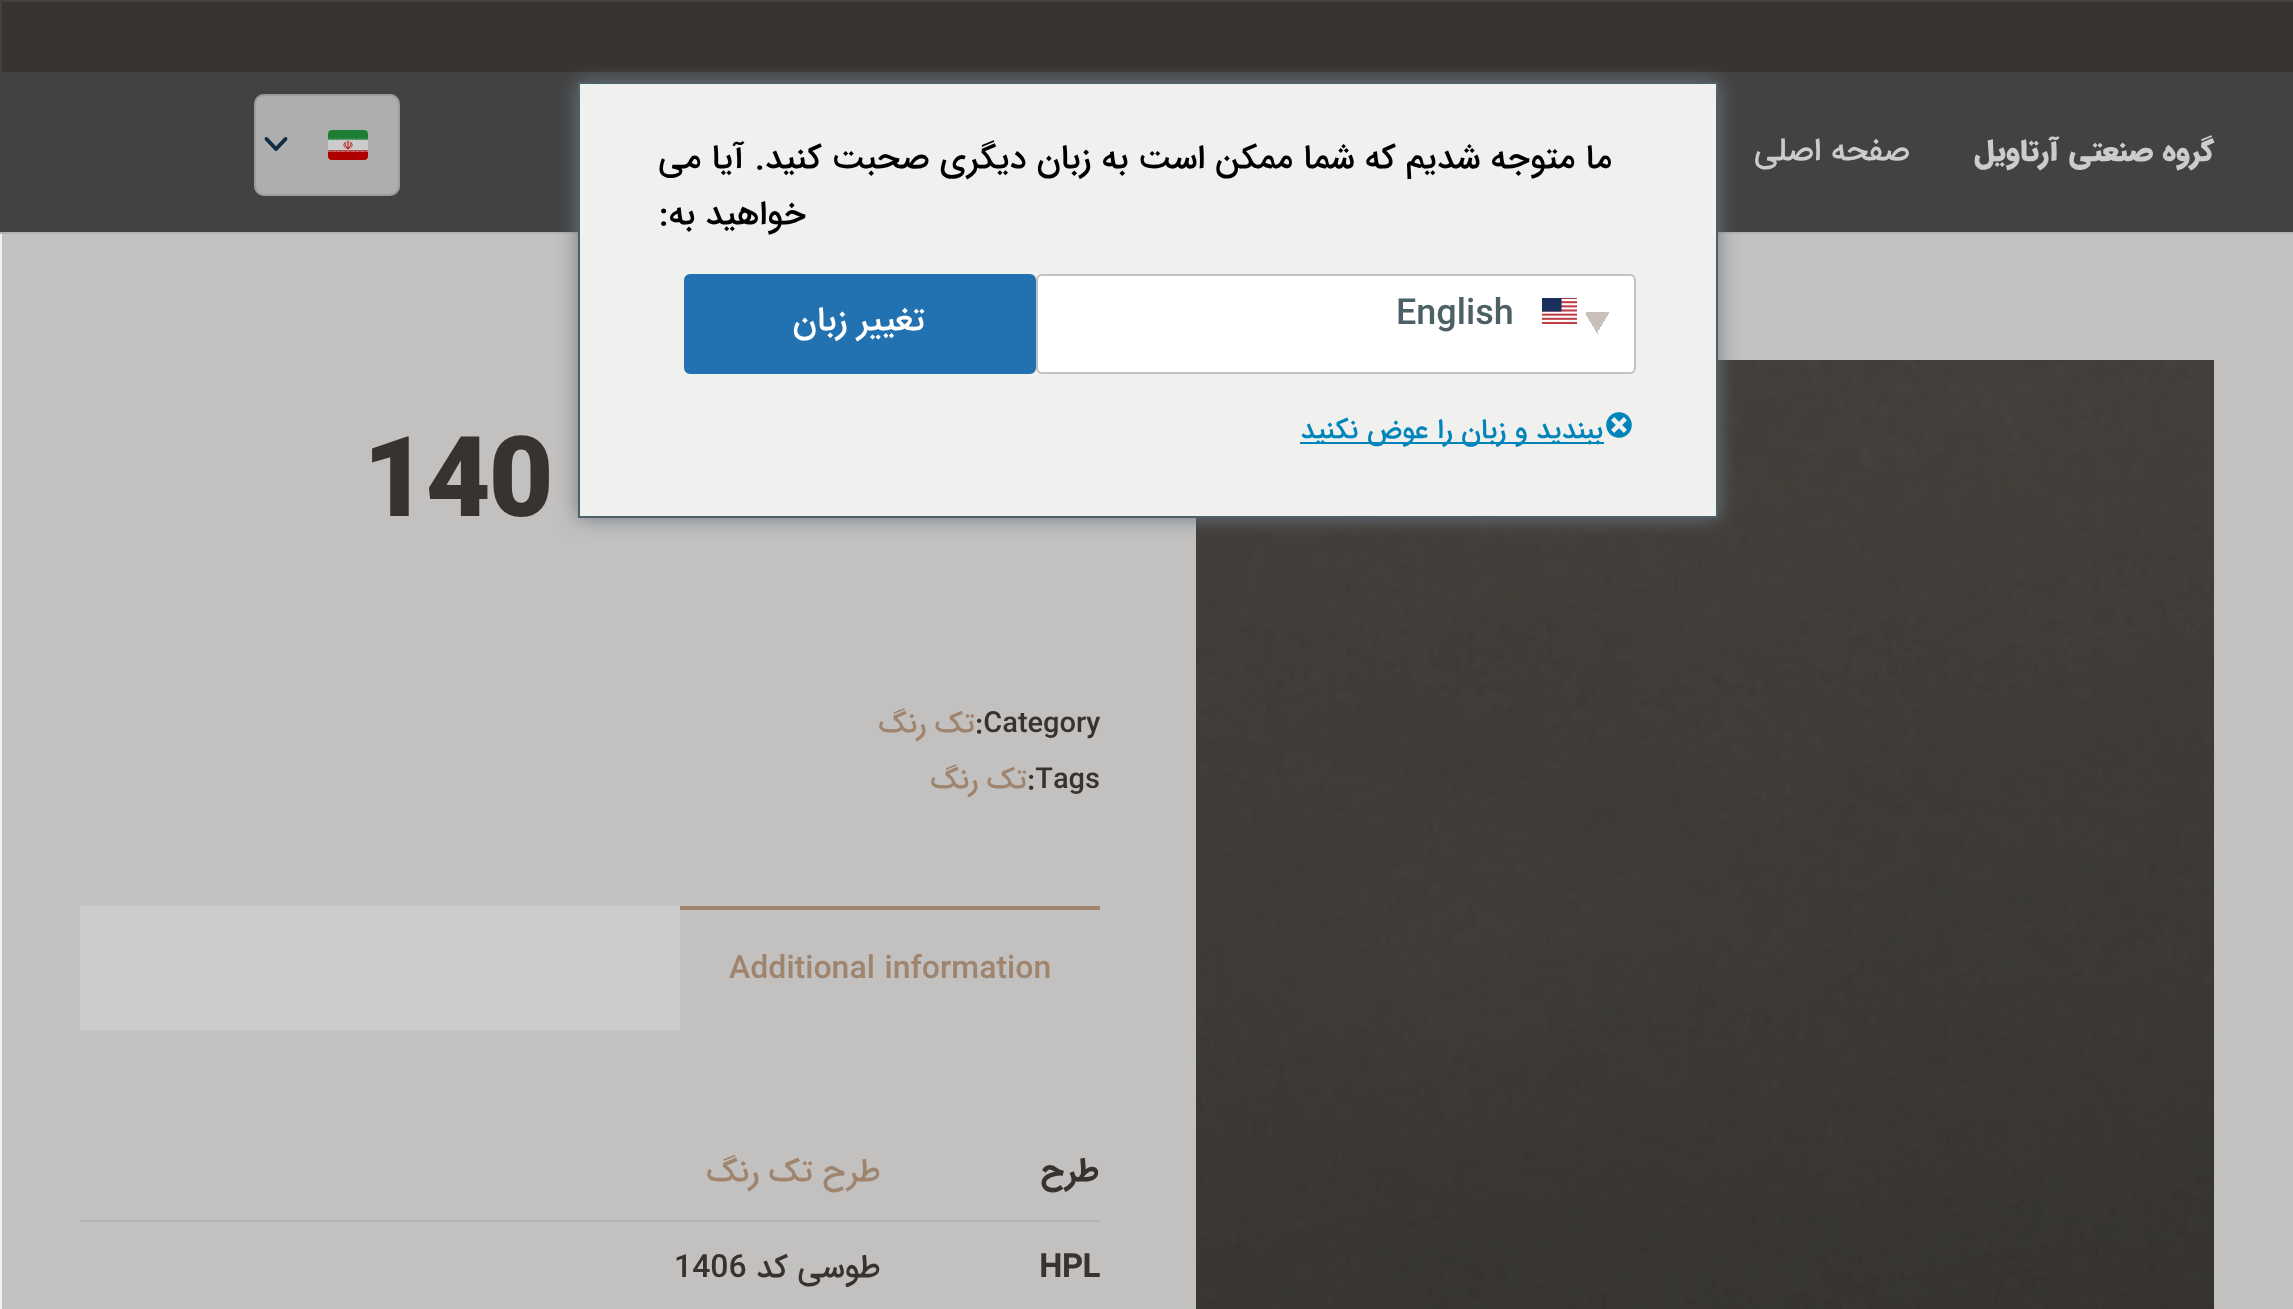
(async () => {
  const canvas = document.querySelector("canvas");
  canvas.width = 2293;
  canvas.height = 1309;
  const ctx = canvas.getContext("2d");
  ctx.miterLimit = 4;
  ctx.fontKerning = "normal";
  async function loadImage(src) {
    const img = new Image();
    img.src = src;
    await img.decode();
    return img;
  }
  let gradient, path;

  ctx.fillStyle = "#f2f1f0";
  ctx.fillRect(0, 0, 2293, 1309);
  for (const [x, y, w, h, color] of [
    [2, 234, 2291, 1075, "#c2c1c0"],
    [0, 0, 2293, 72, "#46403c"],
    [2, 2, 2291, 70, "#383330"],
    [0, 232, 2293, 2, "#b2b2b1"],
    [0, 72, 2293, 160, "#424242"],
  ]) {
    ctx.fillStyle = color;
    ctx.fillRect(x, y, w, h);
  }
  ctx.fillStyle = "#8d8d8d";
  ctx.beginPath();
  ctx.roundRect(254, 94, 146, 102, 10);
  ctx.fill();
  ctx.beginPath();
  ctx.roundRect(255, 95, 144, 100, 9);
  ctx.strokeStyle = "rgba(16, 45, 66, 0.1)";
  ctx.lineWidth = 2;
  ctx.stroke();
  ctx.drawImage(await loadImage("img/1.png"), 328, 130, 40, 30);
  path = new Path2D("M266.5 139L276 149L285.5 139");
  ctx.strokeStyle = "#102d42";
  ctx.lineWidth = 3.8;
  ctx.lineCap = "round";
  ctx.lineJoin = "round";
  ctx.stroke(path);
  ctx.fillStyle = "rgba(204, 204, 204, 0.54)";
  ctx.beginPath();
  ctx.roundRect(254, 94, 146, 102, 10);
  ctx.fill();
  ctx.beginPath();
  ctx.roundRect(255, 95, 144, 100, 9);
  ctx.strokeStyle = "rgba(16, 45, 66, 0.1)";
  ctx.lineWidth = 2;
  ctx.lineJoin = "miter";
  ctx.stroke();
  ctx.drawImage(await loadImage("img/2.png"), 328, 130, 40, 30);
  path = new Path2D("M266.5 139L276 149L285.5 139");
  ctx.strokeStyle = "#102d42";
  ctx.lineWidth = 3.8;
  ctx.lineJoin = "round";
  ctx.stroke(path);
  ctx.drawImage(await loadImage("img/3.png"), 1196, 360, 1018, 949);
  for (const [x, y, w, h, color] of [
    [80, 906, 600, 124, "#cccccc"],
    [680, 906, 420, 4, "#9f846e"],
    [80, 1220, 1020, 2, "#b3b2b0"],
  ]) {
    ctx.fillStyle = color;
    ctx.fillRect(x, y, w, h);
  }
  ctx.fillStyle = "#6c7781";
  ctx.filter = "blur(10px)";
  ctx.beginPath();
  ctx.rect(578, 82, 1140, 436);
  ctx.fill();
  ctx.filter = "none";
  ctx.fillStyle = "#f0f0ee";
  ctx.beginPath();
  ctx.rect(579, 83, 1138, 434);
  ctx.fill();
  ctx.strokeStyle = "#4c6066";
  ctx.lineWidth = 2;
  ctx.lineJoin = "miter";
  ctx.stroke();
  ctx.fillStyle = "#ffffff";
  ctx.beginPath();
  ctx.roundRect(1036, 274, 600, 100, 6);
  ctx.fill();
  gradient = ctx.createLinearGradient(1593, 317, 1613, 329);
  gradient.addColorStop(0.5, "#c9c0bb");
  gradient.addColorStop(0.5, "#ffffff");
  ctx.fillStyle = gradient;
  ctx.fillRect(1598, 312, 11, 18);
  gradient = ctx.createLinearGradient(1581, 329, 1601, 317);
  gradient.addColorStop(0.5, "#ffffff");
  gradient.addColorStop(0.5, "#c9c0bb");
  ctx.fillStyle = gradient;
  ctx.fillRect(1586, 312, 12, 22);
  ctx.beginPath();
  ctx.roundRect(1037, 275, 598, 98, 5);
  ctx.strokeStyle = "#c1c1c1";
  ctx.stroke();
  ctx.drawImage(await loadImage("img/4.png"), 1542, 298, 35, 26);
  ctx.fillStyle = "#2271b1";
  ctx.beginPath();
  ctx.roundRect(685, 275, 350, 98, 5);
  ctx.fill();
  ctx.strokeStyle = "#2271b1";
  ctx.stroke();
  ctx.drawImage(await loadImage("img/5.png"), 1606, 412, 26, 26);
  ctx.fillStyle = "#0085ba";
  ctx.fillRect(1300, 442, 304, 2);
  ctx.direction = "rtl";
  ctx.font = "900 30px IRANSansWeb";
  ctx.fillStyle = "#cccccc";
  ctx.fillText("گروه صنعتی آرتاویل", 2214, 160);
  ctx.font = "500 32px IRANSansWeb";
  ctx.fillText("صفحه اصلی", 1910, 160);
  ctx.letterSpacing = "-2px";
  ctx.direction = "ltr";
  ctx.font = "900 112px IRANSansWeb";
  ctx.fillStyle = "#383330";
  ctx.fillText("140", 363, 516);
  ctx.letterSpacing = "0px";
  ctx.font = "500 29px IRANSansWeb";
  ctx.fillText(":Category", 975, 732);
  ctx.direction = "rtl";
  ctx.fillStyle = "#9f846e";
  ctx.fillText("تک رنگ", 975, 732);
  ctx.direction = "ltr";
  ctx.fillStyle = "#383330";
  ctx.fillText(":Tags", 1027, 788);
  ctx.direction = "rtl";
  ctx.fillStyle = "#9f846e";
  ctx.fillText("تک رنگ", 1027, 788);
  ctx.direction = "ltr";
  ctx.font = "500 32px IRANSansWeb";
  ctx.fillText("Additional information", 729, 978);
  ctx.direction = "rtl";
  ctx.font = "bold 32px IRANSansWeb";
  ctx.fillStyle = "#383330";
  ctx.fillText("طرح", 1099, 1181);
  ctx.font = "500 32px IRANSansWeb";
  ctx.fillStyle = "#9f846e";
  ctx.fillText("طرح تک رنگ", 881, 1181);
  ctx.direction = "ltr";
  ctx.font = "bold 32px IRANSansWeb";
  ctx.fillStyle = "#383330";
  ctx.fillText("HPL", 1039, 1277);
  ctx.direction = "rtl";
  ctx.font = "500 32px IRANSansWeb";
  ctx.fillText("طوسی کد", 881, 1277);
  ctx.direction = "ltr";
  ctx.fillText("1406", 674, 1277);
  ctx.direction = "rtl";
  ctx.font = "500 34px IRANSansWeb";
  ctx.fillStyle = "#000000";
  ctx.fillText("ما متوجه شدیم که شما ممکن است به زبان دیگری صحبت کنید. آیا می", 1612, 168);
  ctx.fillText("خواهید به:", 806, 224);
  ctx.direction = "ltr";
  ctx.font = "500 36px IRANSansWeb";
  ctx.fillStyle = "#4c6066";
  ctx.fillText("English", 1396, 324);
  ctx.direction = "rtl";
  ctx.font = "500 34px IRANSansWeb";
  ctx.fillStyle = "#ffffff";
  ctx.fillText("تغییر زبان", 925, 330);
  ctx.font = "500 28px IRANSansWeb";
  ctx.fillStyle = "#0085ba";
  ctx.fillText("ببندید و زبان را عوض نکنید", 1603, 438);
})();
